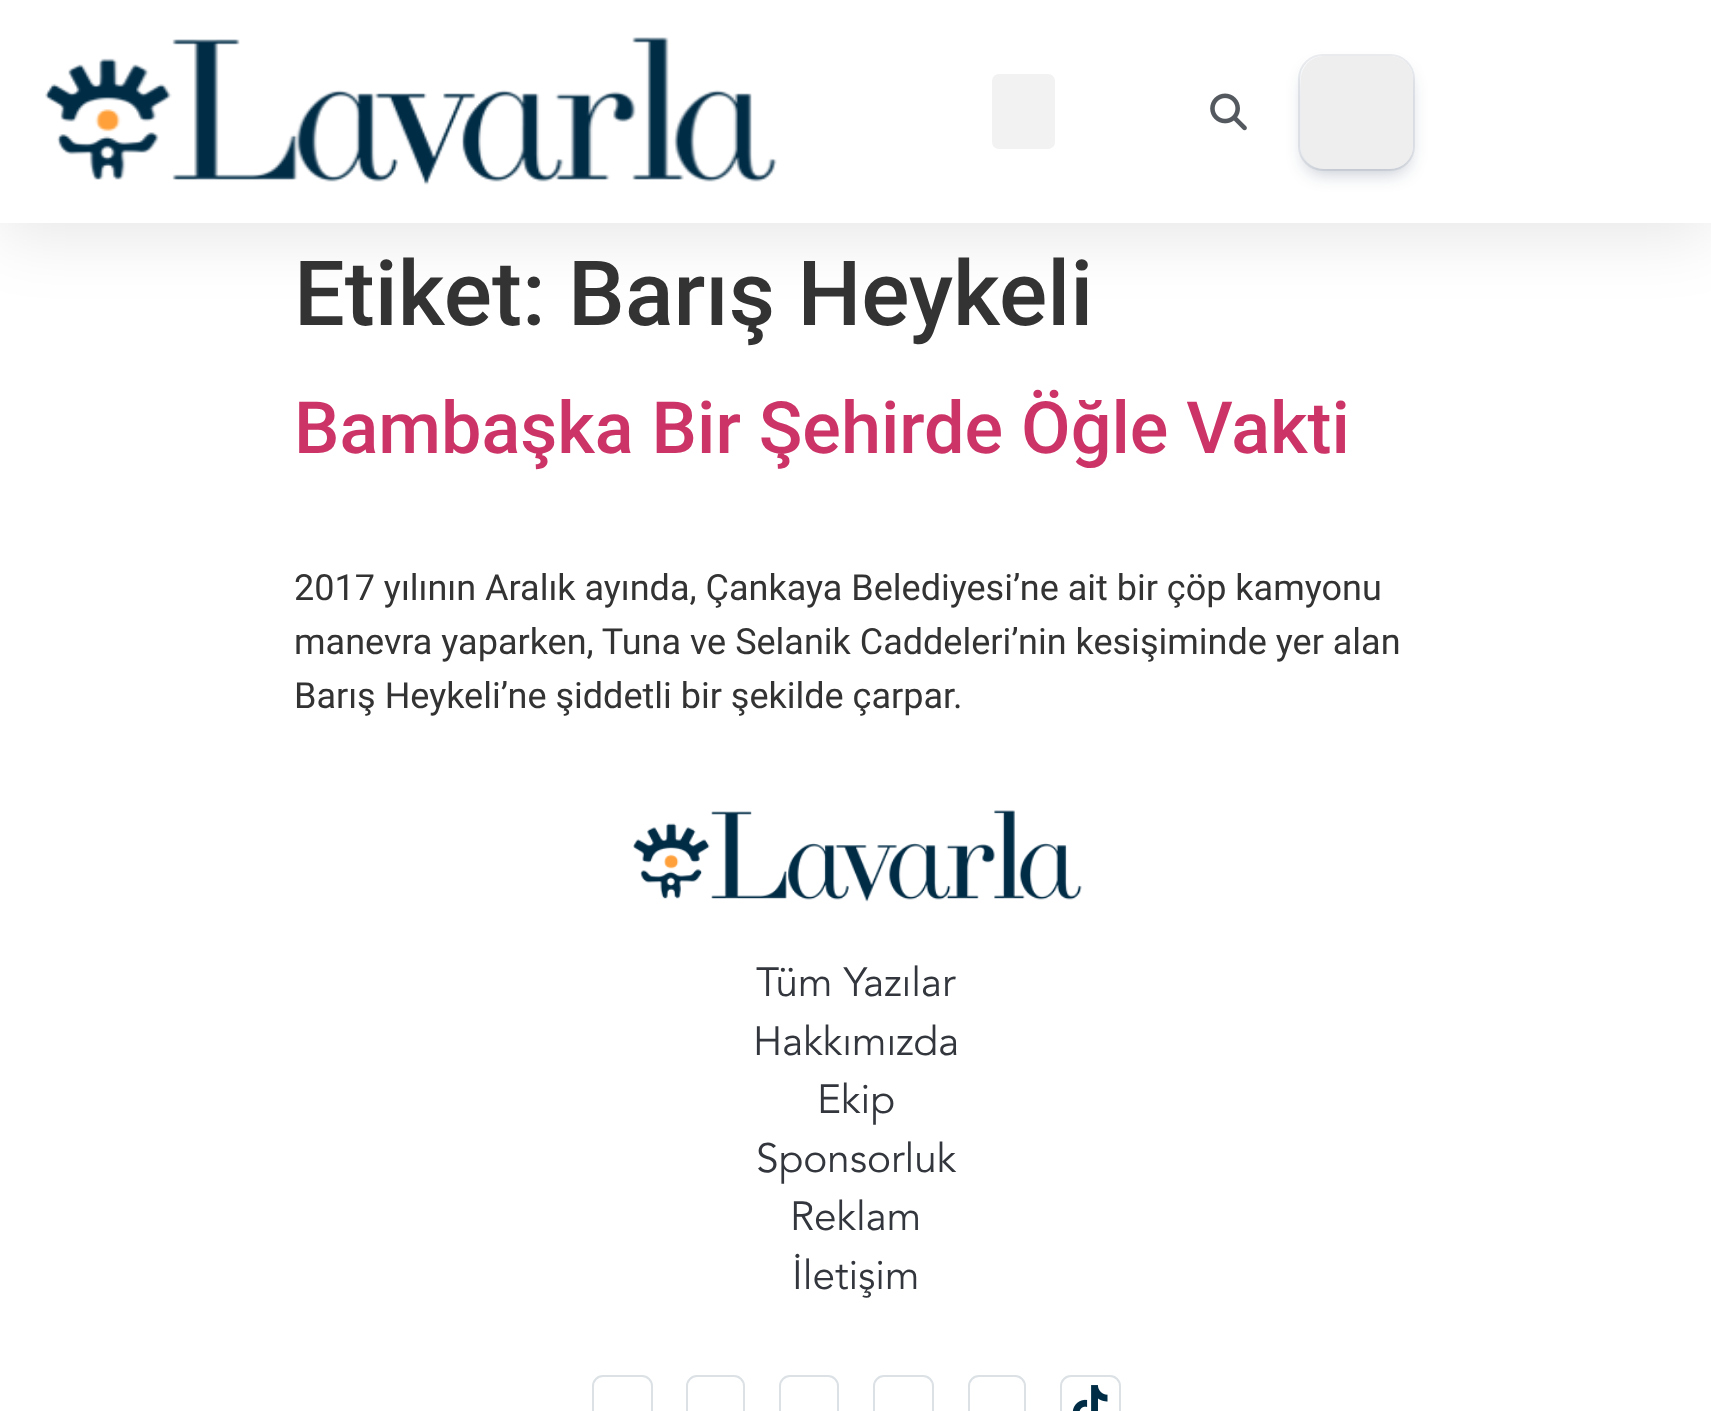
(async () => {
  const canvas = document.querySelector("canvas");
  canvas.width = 1711;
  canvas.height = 1411;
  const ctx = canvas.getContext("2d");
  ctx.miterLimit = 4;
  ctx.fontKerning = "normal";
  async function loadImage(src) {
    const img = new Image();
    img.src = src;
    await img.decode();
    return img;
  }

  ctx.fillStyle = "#ffffff";
  ctx.fillRect(0, 0, 1711, 1411);
  ctx.fillStyle = "rgba(0, 0, 0, 0.1)";
  ctx.filter = "blur(34px)";
  ctx.beginPath();
  ctx.rect(0, 11, 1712, 223);
  ctx.fill();
  ctx.filter = "none";
  ctx.fillStyle = "#ffffff";
  ctx.fillRect(0, 0, 1711, 223);
  ctx.drawImage(await loadImage("img/1.png"), 45, 37, 732, 148);
  ctx.fillStyle = "#f2f2f2";
  ctx.beginPath();
  ctx.roundRect(992, 74, 63, 75, 7);
  ctx.fill();
  ctx.drawImage(await loadImage("img/2.png"), 1210, 93, 37, 38);
  ctx.beginPath();
  ctx.roundRect(1299, 55, 115, 115, 24);
  ctx.strokeStyle = "#ebedf0";
  ctx.lineWidth = 2;
  ctx.stroke();
  ctx.fillStyle = "rgba(9, 30, 66, 0.25)";
  ctx.filter = "blur(9px)";
  ctx.beginPath();
  ctx.roundRect(1305, 70, 104, 103, 18);
  ctx.fill();
  ctx.filter = "none";
  ctx.fillStyle = "#eeeeee";
  ctx.beginPath();
  ctx.roundRect(1301, 56, 112, 113, 23);
  ctx.fill();
  ctx.drawImage(await loadImage("img/3.png"), 633, 810, 449, 92);
  ctx.beginPath();
  ctx.roundRect(593, 1376, 59, 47, 10);
  ctx.strokeStyle = "#dbe1e5";
  ctx.stroke();
  ctx.beginPath();
  ctx.roundRect(687, 1376, 57, 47, 10);
  ctx.stroke();
  ctx.beginPath();
  ctx.roundRect(780, 1376, 58, 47, 10);
  ctx.stroke();
  ctx.beginPath();
  ctx.roundRect(874, 1376, 59, 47, 10);
  ctx.stroke();
  ctx.beginPath();
  ctx.roundRect(969, 1376, 56, 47, 10);
  ctx.stroke();
  ctx.beginPath();
  ctx.roundRect(1061, 1376, 59, 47, 10);
  ctx.stroke();
  ctx.drawImage(await loadImage("img/4.png"), 1072, 1385, 36, 26);
  ctx.font = "500 90px Roboto";
  ctx.fillStyle = "#333333";
  ctx.fillText("Etiket: Barış Heykeli", 294, 325);
  ctx.font = "500 72px Roboto";
  ctx.fillStyle = "#cc3366";
  ctx.fillText("Bambaşka Bir Şehirde Öğle Vakti", 294, 453);
  ctx.font = "36px Roboto";
  ctx.fillStyle = "#333333";
  for (const [text, x, y] of [
    ["2017 yılının Aralık ayında, Çankaya Belediyesi’ne ait bir çöp kamyonu", 294, 600],
    ["manevra yaparken, Tuna ve Selanik Caddeleri’nin kesişiminde yer alan", 294, 654],
    ["Barış Heykeli’ne şiddetli bir şekilde çarpar.", 294, 708],
  ]) {
    ctx.fillText(text, x, y);
  }
  ctx.font = "40.5px Avenir";
  ctx.fillStyle = "#33373d";
  for (const [text, x, y] of [
    ["Tüm Yazılar", 756, 996],
    ["Hakkımızda", 753, 1055],
    ["Ekip", 817, 1113],
    ["Sponsorluk", 756, 1172],
    ["Reklam", 790, 1230],
    ["İletişim", 792, 1289],
  ]) {
    ctx.fillText(text, x, y);
  }
})();
